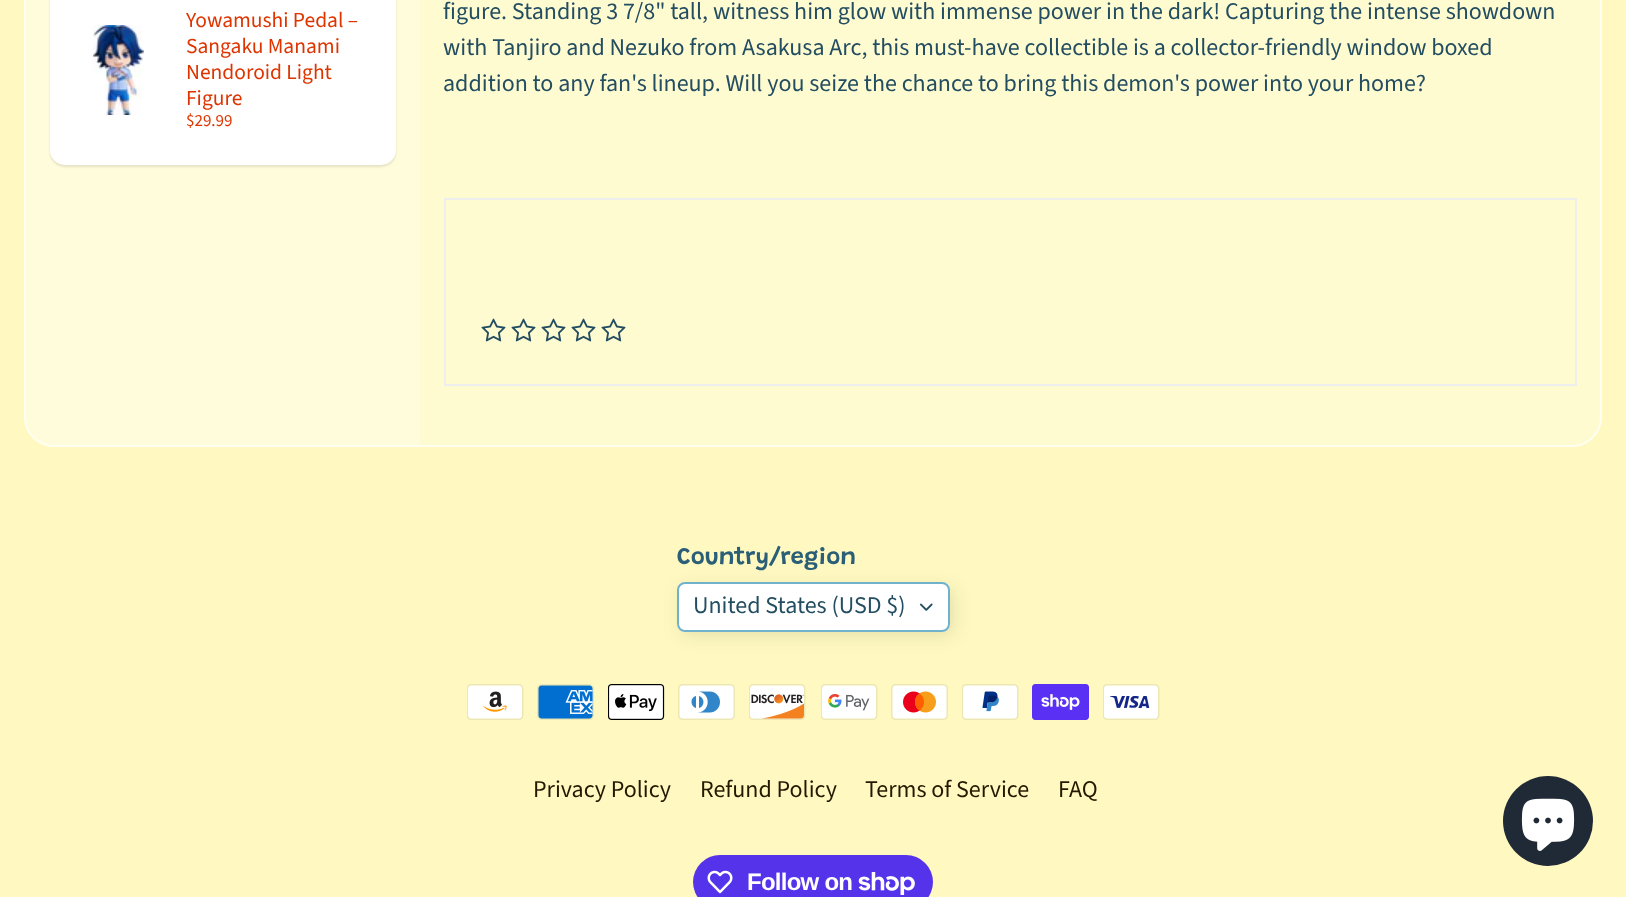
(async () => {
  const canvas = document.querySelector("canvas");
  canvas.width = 1626;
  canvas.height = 897;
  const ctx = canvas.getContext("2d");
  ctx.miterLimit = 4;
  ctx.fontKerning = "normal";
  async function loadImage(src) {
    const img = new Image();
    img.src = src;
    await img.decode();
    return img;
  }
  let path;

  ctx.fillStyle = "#fff9c1";
  ctx.fillRect(0, 0, 1626, 897);
  ctx.fillStyle = "#fffbd0";
  ctx.beginPath();
  ctx.roundRect(24, -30, 1578, 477, 30);
  ctx.fill();
  ctx.beginPath();
  ctx.roundRect(25, -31, 1576, 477, 29);
  ctx.strokeStyle = "rgba(255, 255, 255, 0.7)";
  ctx.lineWidth = 2;
  ctx.stroke();
  ctx.fillStyle = "rgba(255, 255, 255, 0.25)";
  path = new Path2D("M55-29H420V446H55C39 446 26 433 26 417V0C26-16 39-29 55-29Z");
  ctx.fill(path);
  ctx.fillStyle = "rgba(0, 0, 0, 0.1)";
  ctx.filter = "blur(1px)";
  ctx.beginPath();
  ctx.roundRect(50, -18, 346, 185, 15);
  ctx.fill();
  ctx.filter = "none";
  ctx.fillStyle = "#ffffff";
  ctx.beginPath();
  ctx.roundRect(50, -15, 346, 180, 15);
  ctx.fill();
  ctx.drawImage(await loadImage("img/1.png"), 93, 25, 51, 90);
  ctx.strokeStyle = "#eeeeee";
  ctx.strokeRect(445, 199, 1131, 186);
  ctx.drawImage(await loadImage("img/2.png"), 481, 318, 25, 24);
  ctx.drawImage(await loadImage("img/2.png"), 511, 318, 25, 24);
  ctx.drawImage(await loadImage("img/2.png"), 541, 318, 25, 24);
  ctx.drawImage(await loadImage("img/2.png"), 571, 318, 25, 24);
  ctx.drawImage(await loadImage("img/2.png"), 601, 318, 25, 24);
  ctx.fillStyle = "rgba(0, 0, 0, 0.1)";
  ctx.filter = "blur(9px)";
  ctx.beginPath();
  ctx.roundRect(681, 587, 273, 49, 8);
  ctx.fill();
  ctx.filter = "none";
  ctx.fillStyle = "#ffffff";
  ctx.beginPath();
  ctx.roundRect(677, 582, 273, 50, 8);
  ctx.fill();
  ctx.drawImage(await loadImage("img/3.png"), 920, 603, 13, 8);
  ctx.beginPath();
  ctx.roundRect(678, 583, 271, 48, 7);
  ctx.strokeStyle = "#70b1cc";
  ctx.stroke();
  ctx.drawImage(await loadImage("img/4.png"), 467, 684, 57, 36);
  ctx.drawImage(await loadImage("img/5.png"), 537, 684, 57, 36);
  ctx.drawImage(await loadImage("img/6.png"), 608, 684, 57, 36);
  ctx.drawImage(await loadImage("img/7.png"), 678, 684, 57, 36);
  ctx.drawImage(await loadImage("img/8.png"), 749, 684, 57, 36);
  ctx.drawImage(await loadImage("img/9.png"), 821, 684, 57, 36);
  ctx.drawImage(await loadImage("img/10.png"), 891, 684, 57, 36);
  ctx.drawImage(await loadImage("img/11.png"), 962, 684, 57, 36);
  ctx.drawImage(await loadImage("img/12.png"), 1032, 684, 57, 36);
  ctx.drawImage(await loadImage("img/13.png"), 1103, 684, 57, 36);
  ctx.fillStyle = "#5433eb";
  ctx.beginPath();
  ctx.roundRect(693, 855, 240, 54, 27);
  ctx.fill();
  ctx.drawImage(await loadImage("img/14.png"), 707, 870, 26, 24);
  ctx.drawImage(await loadImage("img/15.png"), 858, 872, 57, 23);
  ctx.fillStyle = "#202a36";
  ctx.beginPath();
  ctx.arc(1548, 821, 45, 0, Math.PI * 2);
  ctx.fill();
  ctx.drawImage(await loadImage("img/16.png"), 1521, 798, 54, 53);
  ctx.font = "21.5px Source Sans Pro";
  ctx.fillStyle = "#de3500";
  for (const [text, x, y] of [
    ["Yowamushi Pedal –", 186, 27],
    ["Sangaku Manami", 186, 53],
    ["Nendoroid Light", 186, 79],
    ["Figure", 186, 105],
  ]) {
    ctx.fillText(text, x, y);
  }
  ctx.font = "17px Source Sans Pro";
  ctx.fillText("$29.99", 186, 126);
  ctx.font = "24px Source Sans Pro";
  ctx.fillStyle = "#234d61";
  for (const [text, x, y] of [
    ["figure. Standing 3 7/8\" tall, witness him glow with immense power in the dark! Capturing the intense showdown", 443, 19],
    ["with Tanjiro and Nezuko from Asakusa Arc, this must-have collectible is a collector-friendly window boxed", 443, 55],
    ["addition to any fan's lineup. Will you seize the chance to bring this demon's power into your home?", 443, 91],
  ]) {
    ctx.fillText(text, x, y);
  }
  ctx.font = "600 24px Grandstander";
  ctx.fillStyle = "#2b5f77";
  ctx.fillText("Country/region", 677, 564);
  ctx.font = "24px Source Sans Pro";
  ctx.fillStyle = "#234d61";
  ctx.fillText("United States (USD $)", 693, 613);
  ctx.fillStyle = "#251800";
  for (const [text, x, y] of [
    ["Privacy Policy", 533, 797],
    ["Refund Policy", 700, 797],
    ["Terms of Service", 865, 797],
    ["FAQ", 1058, 797],
  ]) {
    ctx.fillText(text, x, y);
  }
  ctx.letterSpacing = "-0.75px";
  ctx.font = "bold 24px Liberation Sans";
  ctx.fillStyle = "#ffffff";
  ctx.fillText("Follow on", 747, 890);
})();
